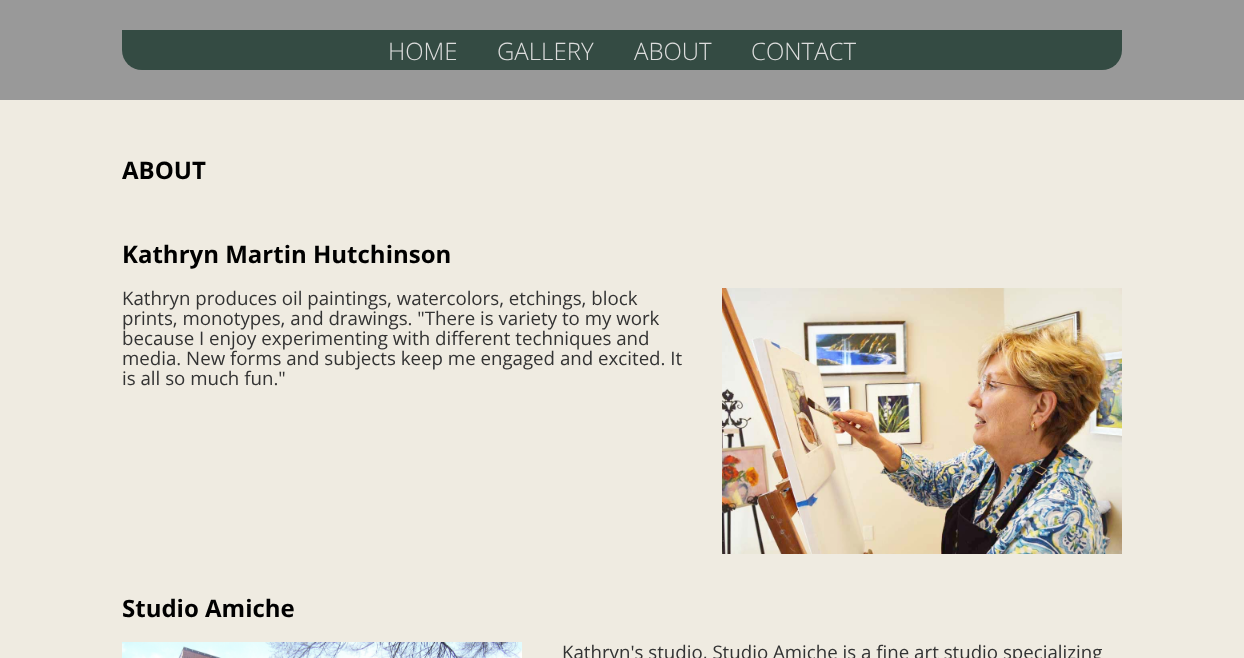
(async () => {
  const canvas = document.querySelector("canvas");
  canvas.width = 1244;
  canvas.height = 658;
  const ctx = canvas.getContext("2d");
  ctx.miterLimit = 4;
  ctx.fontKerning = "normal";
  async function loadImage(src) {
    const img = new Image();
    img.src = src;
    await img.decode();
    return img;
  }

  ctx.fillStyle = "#efebe1";
  ctx.fillRect(0, 0, 1244, 658);
  ctx.fillStyle = "#999999";
  ctx.fillRect(0, 0, 1244, 100);
  ctx.fillStyle = "#344b43";
  ctx.beginPath();
  ctx.roundRect(122, 30, 1000, 40, [0, 0, 20, 20]);
  ctx.fill();
  ctx.drawImage(await loadImage("img/1.png"), 722, 288, 400, 266);
  ctx.drawImage(await loadImage("img/2.png"), 122, 642, 400, 16);
  ctx.font = "300 24px Open Sans";
  ctx.fillStyle = "#dddddd";
  for (const [text, x, y] of [
    ["HOME", 388, 60],
    ["GALLERY", 497, 60],
    ["ABOUT", 634, 60],
    ["CONTACT", 751, 60],
  ]) {
    ctx.fillText(text, x, y);
  }
  ctx.font = "bold 24px Open Sans";
  ctx.fillStyle = "#000000";
  ctx.fillText("ABOUT", 122, 179);
  ctx.fillText("Kathryn Martin Hutchinson", 122, 263);
  ctx.font = "18.7px Open Sans";
  ctx.fillStyle = "#333333";
  for (const [text, x, y] of [
    ["Kathryn produces oil paintings, watercolors, etchings, block", 122, 305],
    ["prints, monotypes, and drawings. \"There is variety to my work", 122, 325],
    ["because I enjoy experimenting with different techniques and", 122, 345],
    ["media. New forms and subjects keep me engaged and excited. It", 122, 365],
    ["is all so much fun.\"", 122, 385],
  ]) {
    ctx.fillText(text, x, y);
  }
  ctx.font = "bold 24px Open Sans";
  ctx.fillStyle = "#000000";
  ctx.fillText("Studio Amiche", 122, 617);
  ctx.font = "18.7px Open Sans";
  ctx.fillStyle = "#333333";
  ctx.fillText("Kathryn's studio, Studio Amiche is a fine art studio specializing", 562, 659);
})();
